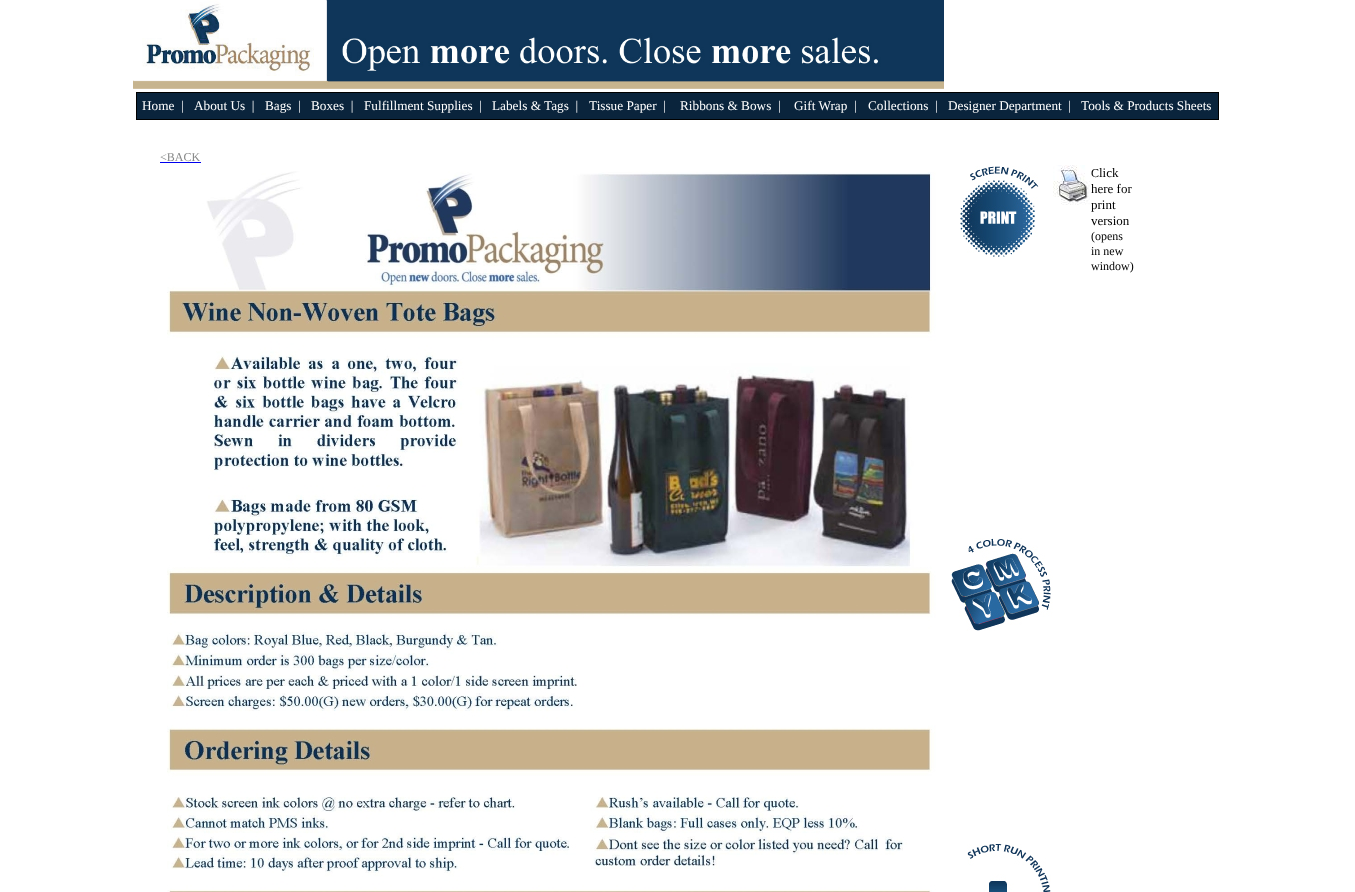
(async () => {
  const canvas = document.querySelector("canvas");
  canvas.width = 1355;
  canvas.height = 892;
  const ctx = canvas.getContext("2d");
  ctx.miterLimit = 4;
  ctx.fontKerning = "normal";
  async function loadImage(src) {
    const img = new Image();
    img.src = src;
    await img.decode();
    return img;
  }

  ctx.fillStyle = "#ffffff";
  ctx.fillRect(0, 0, 1355, 892);
  ctx.drawImage(await loadImage("img/1.png"), 133, 0, 811, 89);
  ctx.strokeStyle = "#000000";
  ctx.strokeRect(136.5, 92.5, 1082, 27);
  ctx.fillStyle = "#0a243c";
  ctx.fillRect(137, 93, 1081, 26);
  ctx.fillStyle = "#0000ee";
  ctx.fillRect(160, 162, 41, 1);
  ctx.drawImage(await loadImage("img/2.png"), 167, 171, 769, 721);
  ctx.drawImage(await loadImage("img/3.png"), 960, 166, 79, 91);
  ctx.drawImage(await loadImage("img/4.png"), 1053, 165, 37, 40);
  ctx.drawImage(await loadImage("img/5.png"), 950, 538, 103, 93);
  ctx.drawImage(await loadImage("img/6.png"), 967, 844, 84, 48);
  ctx.font = "13.25px Liberation Serif";
  ctx.fillStyle = "#ffffff";
  for (const [text, x, y] of [
    ["Home  |", 142, 110],
    ["About Us  |", 194, 110],
    ["Bags  |", 265, 110],
    ["Boxes  |", 311, 110],
    ["Fulfillment Supplies  |", 364, 110],
    ["Labels & Tags  |", 492, 110],
    ["Tissue Paper  |", 589, 110],
    ["Ribbons & Bows  |", 680, 110],
    ["Gift Wrap  |", 794, 110],
    ["Collections  |", 868, 110],
    ["Designer Department  |", 948, 110],
    ["Tools & Products Sheets", 1081, 110],
  ]) {
    ctx.fillText(text, x, y);
  }
  ctx.font = "12px Liberation Serif";
  ctx.fillStyle = "#898a8a";
  ctx.fillText("<BACK", 160, 161);
  ctx.fillStyle = "#000000";
  ctx.fillText("C", 1091, 177);
  ctx.font = "13px Liberation Serif";
  for (const [text, x, y] of [
    ["lick", 1099, 177],
    ["here for", 1091, 193],
    ["print", 1091, 209],
    ["version", 1091, 225],
  ]) {
    ctx.fillText(text, x, y);
  }
  ctx.font = "12px Liberation Serif";
  for (const [text, x, y] of [
    ["(opens", 1091, 240],
    ["in new", 1091, 255],
    ["window)", 1091, 270],
  ]) {
    ctx.fillText(text, x, y);
  }
})();
